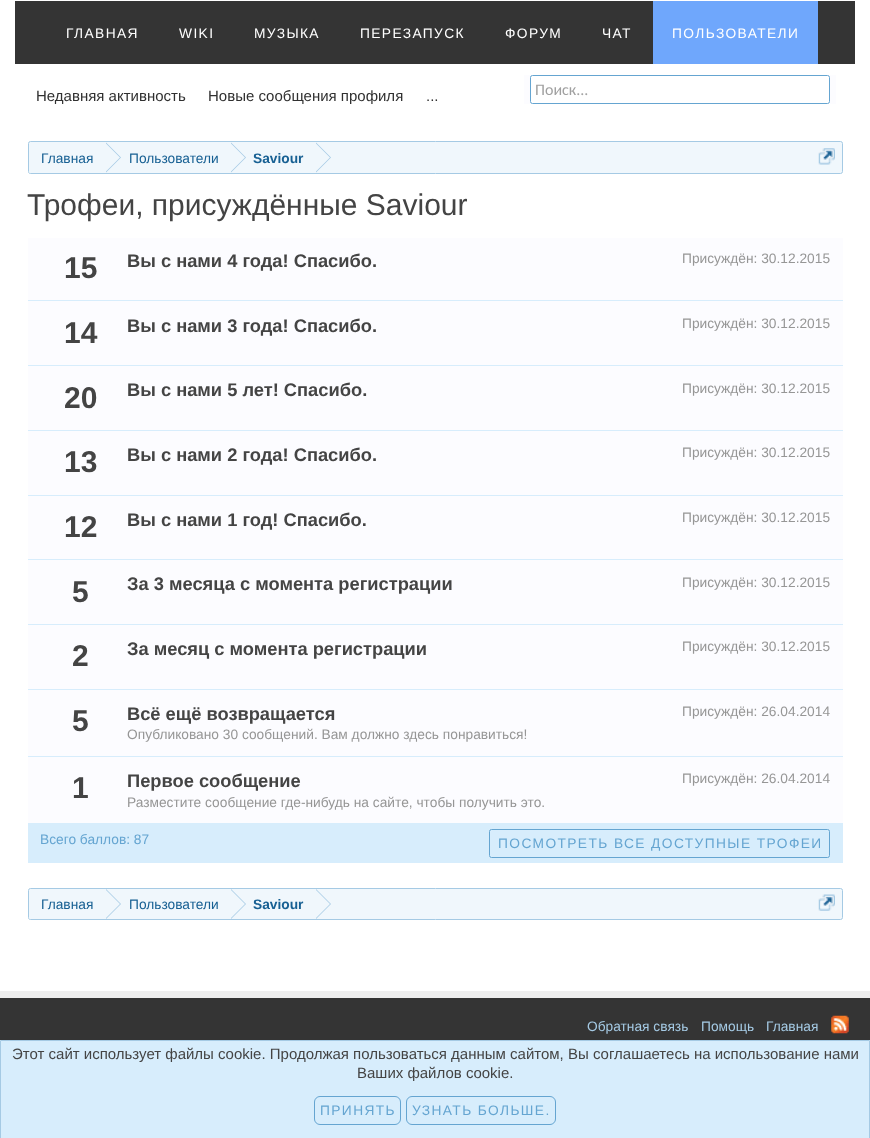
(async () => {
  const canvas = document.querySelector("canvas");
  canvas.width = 870;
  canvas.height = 1138;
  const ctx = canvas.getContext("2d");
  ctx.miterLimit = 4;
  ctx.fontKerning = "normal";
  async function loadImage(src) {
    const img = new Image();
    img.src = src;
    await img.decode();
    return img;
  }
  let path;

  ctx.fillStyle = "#ffffff";
  ctx.fillRect(0, 0, 870, 1138);
  for (const [x, y, w, h, color] of [
    [15, 1, 840, 63, "#343434"],
    [653, 1, 165, 63, "#6fa7fc"],
    [524, 75, 312, 29, "#fcfcff"],
  ]) {
    ctx.fillStyle = color;
    ctx.fillRect(x, y, w, h);
  }
  ctx.fillStyle = "#ffffff";
  ctx.beginPath();
  ctx.roundRect(530.5, 75.5, 299, 28, 2);
  ctx.fill();
  ctx.strokeStyle = "#65a5d1";
  ctx.stroke();
  ctx.fillStyle = "#f0f7fc";
  ctx.beginPath();
  ctx.roundRect(28.5, 141.5, 814, 32, 2);
  ctx.fill();
  ctx.strokeStyle = "#a5cae4";
  ctx.stroke();
  ctx.save();
  ctx.beginPath();
  ctx.roundRect(29, 143, 812, 30, 1);
  ctx.clip();
  ctx.beginPath();
  ctx.roundRect(29, 143, 77, 31, [2.5, 0, 0, 2.5]);
  ctx.fill();
  ctx.restore();
  ctx.fillStyle = "#a5cae4";
  path = new Path2D("M106 172.5V142.5L121 157.5Z");
  ctx.fill(path);
  ctx.fillStyle = "#f0f7fc";
  path = new Path2D("M105 172.5V142.5L120 157.5Z");
  ctx.fill(path);
  ctx.fillStyle = "#a5cae4";
  path = new Path2D("M231 172.5V142.5L246 157.5Z");
  ctx.fill(path);
  ctx.fillStyle = "#f0f7fc";
  path = new Path2D("M230 172.5V142.5L245 157.5Z");
  ctx.fill(path);
  ctx.fillStyle = "#a5cae4";
  path = new Path2D("M316 172.5V142.5L331 157.5Z");
  ctx.fill(path);
  ctx.fillStyle = "#f0f7fc";
  path = new Path2D("M315 172.5V142.5L330 157.5Z");
  ctx.fill(path);
  ctx.drawImage(await loadImage("img/1.png"), 818, 148, 17, 17);
  for (const [x, y, w, h, color] of [
    [28, 238, 815, 62, "#fcfcff"],
    [28, 300, 815, 1, "#d7edfc"],
    [28, 301, 815, 64, "#fcfcff"],
    [28, 365, 815, 1, "#d7edfc"],
    [28, 366, 815, 64, "#fcfcff"],
    [28, 430, 815, 1, "#d7edfc"],
    [28, 431, 815, 64, "#fcfcff"],
    [28, 495, 815, 1, "#d7edfc"],
    [28, 496, 815, 63, "#fcfcff"],
    [28, 559, 815, 1, "#d7edfc"],
    [28, 560, 815, 64, "#fcfcff"],
    [28, 624, 815, 1, "#d7edfc"],
    [28, 625, 815, 64, "#fcfcff"],
    [28, 689, 815, 1, "#d7edfc"],
    [28, 690, 815, 133, "#fcfcff"],
    [28, 756, 815, 1, "#d7edfc"],
    [28, 823, 815, 40, "#d7edfc"],
  ]) {
    ctx.fillStyle = color;
    ctx.fillRect(x, y, w, h);
  }
  ctx.beginPath();
  ctx.roundRect(489.5, 829.5, 340, 28, 2);
  ctx.strokeStyle = "#65a5d1";
  ctx.stroke();
  ctx.fillStyle = "#f0f7fc";
  ctx.beginPath();
  ctx.roundRect(28.5, 888.5, 814, 31, 2);
  ctx.fill();
  ctx.strokeStyle = "#a5cae4";
  ctx.stroke();
  ctx.save();
  ctx.beginPath();
  ctx.roundRect(29, 889, 812, 30, 1);
  ctx.clip();
  ctx.beginPath();
  ctx.roundRect(29, 889, 77, 31, [2.5, 0, 0, 2.5]);
  ctx.fill();
  ctx.restore();
  ctx.fillStyle = "#a5cae4";
  path = new Path2D("M106 919V889L121 904Z");
  ctx.fill(path);
  ctx.fillStyle = "#f0f7fc";
  path = new Path2D("M105 919V889L120 904Z");
  ctx.fill(path);
  ctx.fillStyle = "#a5cae4";
  path = new Path2D("M231 919V889L246 904Z");
  ctx.fill(path);
  ctx.fillStyle = "#f0f7fc";
  path = new Path2D("M230 919V889L245 904Z");
  ctx.fill(path);
  ctx.fillStyle = "#a5cae4";
  path = new Path2D("M316 919V889L331 904Z");
  ctx.fill(path);
  ctx.fillStyle = "#f0f7fc";
  path = new Path2D("M315 919V889L330 904Z");
  ctx.fill(path);
  ctx.drawImage(await loadImage("img/2.png"), 818, 894, 17, 17);
  ctx.fillStyle = "#343434";
  ctx.fillRect(0, 998, 870, 42);
  ctx.fillStyle = "#eeeeee";
  ctx.fillRect(0, 991, 870, 7);
  ctx.drawImage(await loadImage("img/3.png"), 831, 1015, 18, 19);
  ctx.fillStyle = "#d7edfc";
  ctx.beginPath();
  ctx.rect(0.5, 1040.5, 869, 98);
  ctx.fill();
  ctx.stroke();
  ctx.beginPath();
  ctx.roundRect(314.5, 1096.5, 86, 28, 5.5);
  ctx.strokeStyle = "#65a5d1";
  ctx.stroke();
  ctx.beginPath();
  ctx.roundRect(406.5, 1096.5, 149, 28, 5.5);
  ctx.stroke();
  ctx.letterSpacing = "1.4px";
  ctx.font = "13.75px Liberation Sans";
  ctx.fillStyle = "#ffffff";
  ctx.fillText("ПОЛЬЗОВАТЕЛИ", 672, 38);
  ctx.letterSpacing = "0px";
  ctx.font = "15px Liberation Sans";
  ctx.fillStyle = "#303030";
  for (const [text, x, y] of [
    ["Недавняя активность", 36, 101],
    ["Новые сообщения профиля", 208, 101],
    ["...", 426, 101],
  ]) {
    ctx.fillText(text, x, y);
  }
  ctx.letterSpacing = "1.4px";
  ctx.font = "13.75px Liberation Sans";
  ctx.fillStyle = "#ffffff";
  for (const [text, x, y] of [
    ["ГЛАВНАЯ", 66, 38],
    ["WIKI", 179, 38],
    ["МУЗЫКА", 254, 38],
    ["ПЕРЕЗАПУСК", 360, 38],
    ["ФОРУМ", 505, 38],
    ["ЧАТ", 602, 38],
  ]) {
    ctx.fillText(text, x, y);
  }
  ctx.letterSpacing = "0px";
  ctx.font = "16px Carlito";
  ctx.fillStyle = "#a0a0a0";
  ctx.fillText("Поиск...", 535, 95);
  ctx.font = "13.75px Liberation Sans";
  ctx.fillStyle = "#176093";
  ctx.fillText("Главная", 41, 163);
  ctx.fillText("Пользователи", 129, 163);
  ctx.font = "bold 13.75px Liberation Sans";
  ctx.fillText("Saviour", 253, 163);
  ctx.font = "30px Liberation Sans";
  ctx.fillStyle = "#444444";
  ctx.fillText("Трофеи, присуждённые Saviour", 27, 215);
  ctx.font = "bold 30px Liberation Sans";
  ctx.fillText("15", 64, 278);
  ctx.font = "bold 18.3px Liberation Sans";
  ctx.fillText("Вы с нами 4 года! Спасибо.", 127, 267);
  ctx.font = "13.75px Liberation Sans";
  ctx.fillStyle = "#969696";
  ctx.fillText("Присуждён: 30.12.2015", 682, 263);
  ctx.font = "bold 30px Liberation Sans";
  ctx.fillStyle = "#444444";
  ctx.fillText("14", 64, 343);
  ctx.font = "bold 18.3px Liberation Sans";
  ctx.fillText("Вы с нами 3 года! Спасибо.", 127, 332);
  ctx.font = "13.75px Liberation Sans";
  ctx.fillStyle = "#969696";
  ctx.fillText("Присуждён: 30.12.2015", 682, 328);
  ctx.font = "bold 30px Liberation Sans";
  ctx.fillStyle = "#444444";
  ctx.fillText("20", 64, 408);
  ctx.font = "bold 18.3px Liberation Sans";
  ctx.fillText("Вы с нами 5 лет! Спасибо.", 127, 396);
  ctx.font = "13.75px Liberation Sans";
  ctx.fillStyle = "#969696";
  ctx.fillText("Присуждён: 30.12.2015", 682, 393);
  ctx.font = "bold 30px Liberation Sans";
  ctx.fillStyle = "#444444";
  ctx.fillText("13", 64, 472);
  ctx.font = "bold 18.3px Liberation Sans";
  ctx.fillText("Вы с нами 2 года! Спасибо.", 127, 461);
  ctx.font = "13.75px Liberation Sans";
  ctx.fillStyle = "#969696";
  ctx.fillText("Присуждён: 30.12.2015", 682, 457);
  ctx.font = "bold 30px Liberation Sans";
  ctx.fillStyle = "#444444";
  ctx.fillText("12", 64, 537);
  ctx.font = "bold 18.3px Liberation Sans";
  ctx.fillText("Вы с нами 1 год! Спасибо.", 127, 526);
  ctx.font = "13.75px Liberation Sans";
  ctx.fillStyle = "#969696";
  ctx.fillText("Присуждён: 30.12.2015", 682, 522);
  ctx.font = "bold 30px Liberation Sans";
  ctx.fillStyle = "#444444";
  ctx.fillText("5", 72, 602);
  ctx.font = "bold 18.3px Liberation Sans";
  ctx.fillText("За 3 месяца с момента регистрации", 127, 590);
  ctx.font = "13.75px Liberation Sans";
  ctx.fillStyle = "#969696";
  ctx.fillText("Присуждён: 30.12.2015", 682, 587);
  ctx.font = "bold 30px Liberation Sans";
  ctx.fillStyle = "#444444";
  ctx.fillText("2", 72, 666);
  ctx.font = "bold 18.3px Liberation Sans";
  ctx.fillText("За месяц с момента регистрации", 127, 655);
  ctx.font = "13.75px Liberation Sans";
  ctx.fillStyle = "#969696";
  ctx.fillText("Присуждён: 30.12.2015", 682, 651);
  ctx.font = "bold 30px Liberation Sans";
  ctx.fillStyle = "#444444";
  ctx.fillText("5", 72, 731);
  ctx.font = "bold 18.3px Liberation Sans";
  ctx.fillText("Всё ещё возвращается", 127, 720);
  ctx.font = "13.75px Liberation Sans";
  ctx.fillStyle = "#969696";
  ctx.fillText("Опубликовано 30 сообщений. Вам должно здесь понравиться!", 127, 739);
  ctx.fillText("Присуждён: 26.04.2014", 682, 716);
  ctx.font = "bold 30px Liberation Sans";
  ctx.fillStyle = "#444444";
  ctx.fillText("1", 72, 798);
  ctx.font = "bold 18.3px Liberation Sans";
  ctx.fillText("Первое сообщение", 127, 787);
  ctx.font = "13.75px Liberation Sans";
  ctx.fillStyle = "#969696";
  ctx.fillText("Разместите сообщение где-нибудь на сайте, чтобы получить это.", 127, 807);
  ctx.fillText("Присуждён: 26.04.2014", 682, 783);
  ctx.fillStyle = "#65a5d1";
  ctx.fillText("Всего баллов: 87", 40, 844);
  ctx.letterSpacing = "1.4px";
  ctx.fillText("ПОСМОТРЕТЬ ВСЕ ДОСТУПНЫЕ ТРОФЕИ", 498, 848);
  ctx.letterSpacing = "0px";
  ctx.fillStyle = "#176093";
  ctx.fillText("Главная", 41, 909);
  ctx.fillText("Пользователи", 129, 909);
  ctx.font = "bold 13.75px Liberation Sans";
  ctx.fillText("Saviour", 253, 909);
  ctx.font = "13.75px Liberation Sans";
  ctx.fillStyle = "#a5cae4";
  for (const [text, x, y] of [
    ["Обратная связь", 587, 1031],
    ["Помощь", 701, 1031],
    ["Главная", 766, 1031],
  ]) {
    ctx.fillText(text, x, y);
  }
  ctx.font = "15px Liberation Sans";
  ctx.fillStyle = "#444444";
  ctx.fillText("Этот сайт использует файлы cookie. Продолжая пользоваться данным сайтом, Вы соглашаетесь на использование нами", 12, 1059);
  ctx.fillText("Ваших файлов cookie.", 357, 1078);
  ctx.letterSpacing = "1.4px";
  ctx.font = "13.75px Liberation Sans";
  ctx.fillStyle = "#65a5d1";
  ctx.fillText("ПРИНЯТЬ", 320, 1115);
  ctx.fillText("УЗНАТЬ БОЛЬШЕ.", 412, 1115);
})();
